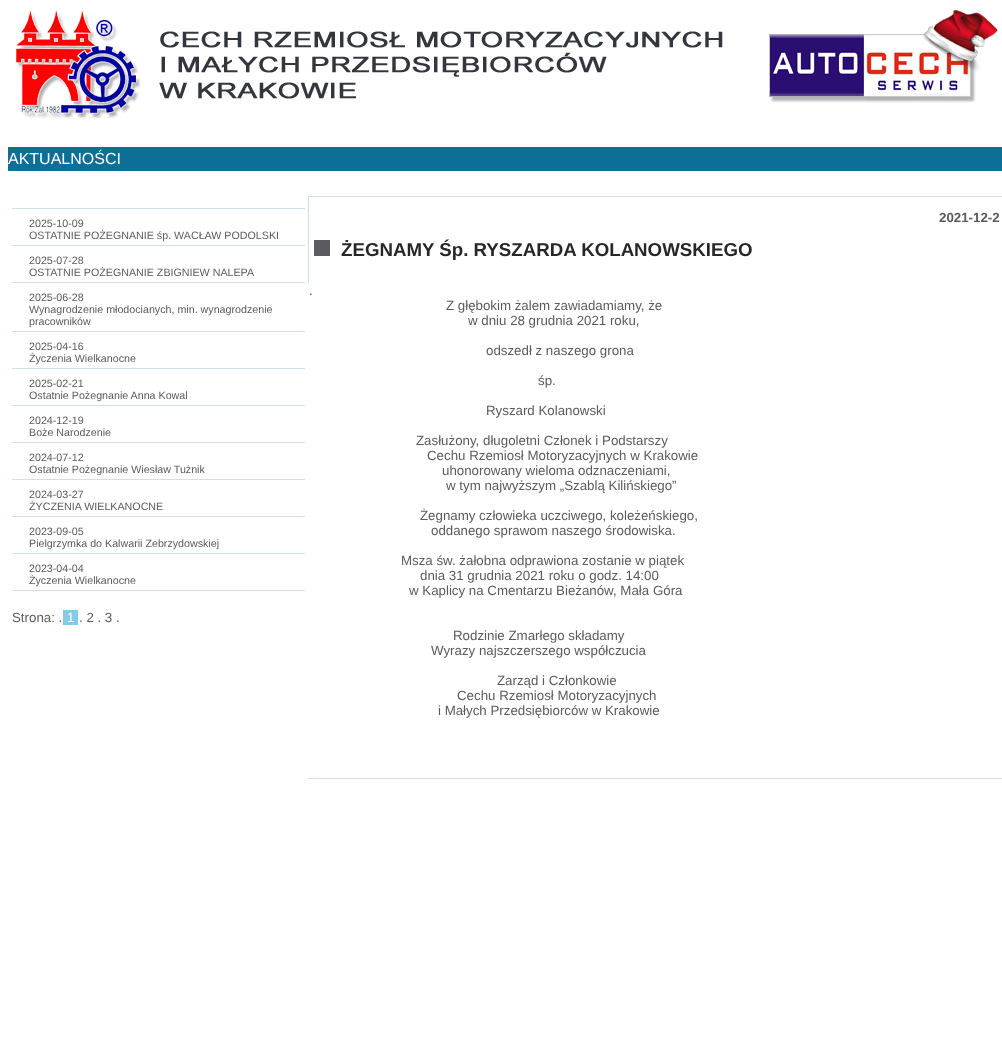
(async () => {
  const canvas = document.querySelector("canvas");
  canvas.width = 1002;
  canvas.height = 1060;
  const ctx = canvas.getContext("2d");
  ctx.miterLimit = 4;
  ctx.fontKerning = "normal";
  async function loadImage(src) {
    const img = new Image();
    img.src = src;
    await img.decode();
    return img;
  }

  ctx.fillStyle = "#ffffff";
  ctx.fillRect(0, 0, 1002, 1060);
  ctx.drawImage(await loadImage("img/1.png"), 16, 10, 982, 109);
  for (const [x, y, w, h, color] of [
    [8, 147, 994, 24, "#0c6f98"],
    [12, 208, 293, 1, "#cde1ea"],
    [12, 245, 293, 1, "#cde1ea"],
    [12, 282, 293, 1, "#cde1ea"],
    [12, 331, 293, 1, "#cde1ea"],
    [12, 368, 293, 1, "#cde1ea"],
    [12, 405, 293, 1, "#cde1ea"],
    [12, 442, 293, 1, "#cde1ea"],
    [12, 479, 293, 1, "#cde1ea"],
    [12, 516, 293, 1, "#cde1ea"],
    [12, 553, 293, 1, "#cde1ea"],
    [12, 590, 293, 1, "#cde1ea"],
    [63, 610, 15, 15, "#82cbeb"],
    [308, 196, 694, 1, "#cde1ea"],
    [308, 196, 1, 87, "#cde1ea"],
    [314, 240, 16, 16, "#5a5a5f"],
    [308, 778, 694, 1, "#cde1ea"],
  ]) {
    ctx.fillStyle = color;
    ctx.fillRect(x, y, w, h);
  }
  ctx.font = "16px Liberation Sans";
  ctx.fillStyle = "#ffffff";
  ctx.fillText("AKTUALNOŚCI", 8, 164);
  ctx.font = "10.7px Liberation Sans";
  ctx.fillStyle = "#5b5b5b";
  for (const [text, x, y] of [
    ["2025-10-09", 29, 227],
    ["OSTATNIE POŻEGNANIE śp. WACŁAW PODOLSKI", 29, 239],
    ["2025-07-28", 29, 264],
    ["OSTATNIE POŻEGNANIE ZBIGNIEW NALEPA", 29, 276],
    ["2025-06-28", 29, 301],
    ["Wynagrodzenie młodocianych, min. wynagrodzenie", 29, 313],
    ["pracowników", 29, 325],
    ["2025-04-16", 29, 350],
    ["Życzenia Wielkanocne", 29, 362],
    ["2025-02-21", 29, 387],
    ["Ostatnie Pożegnanie Anna Kowal", 29, 399],
    ["2024-12-19", 29, 424],
    ["Boże Narodzenie", 29, 436],
    ["2024-07-12", 29, 461],
    ["Ostatnie Pożegnanie Wiesław Tużnik", 29, 473],
    ["2024-03-27", 29, 498],
    ["ŻYCZENIA WIELKANOCNE", 29, 510],
    ["2023-09-05", 29, 535],
    ["Pielgrzymka do Kalwarii Zebrzydowskiej", 29, 547],
    ["2023-04-04", 29, 572],
    ["Życzenia Wielkanocne", 29, 584],
  ]) {
    ctx.fillText(text, x, y);
  }
  ctx.font = "13.3px Liberation Sans";
  ctx.fillText("Strona: .", 12, 622);
  ctx.fillStyle = "#ffffff";
  ctx.fillText("1", 67, 622);
  ctx.fillStyle = "#5b5b5b";
  ctx.fillText(". 2 . 3 .", 79, 622);
  ctx.font = "bold 13.3px Liberation Sans";
  ctx.fillText("2021-12-2", 939, 222);
  ctx.font = "bold 18.7px Liberation Sans";
  ctx.fillStyle = "#272727";
  ctx.fillText("ŻEGNAMY Śp. RYSZARDA KOLANOWSKIEGO", 341, 256);
  ctx.font = "13.3px Liberation Sans";
  ctx.fillStyle = "#5b5b5b";
  for (const [text, x, y] of [
    [".", 309, 295],
    ["Z głębokim żalem zawiadamiamy, że", 446, 310],
    ["w dniu 28 grudnia 2021 roku,", 468, 325],
    ["odszedł z naszego grona", 486, 355],
    ["śp.", 538, 385],
    ["Ryszard Kolanowski", 486, 415],
    ["Zasłużony, długoletni Członek i Podstarszy", 416, 445],
    ["Cechu Rzemiosł Motoryzacyjnych w Krakowie", 427, 460],
    ["uhonorowany wieloma odznaczeniami,", 442, 475],
    ["w tym najwyższym „Szablą Kilińskiego”", 446, 490],
    ["Żegnamy człowieka uczciwego, koleżeńskiego,", 420, 520],
    ["oddanego sprawom naszego środowiska.", 431, 535],
    ["Msza św. żałobna odprawiona zostanie w piątek", 401, 565],
    ["dnia 31 grudnia 2021 roku o godz. 14:00", 420, 580],
    ["w Kaplicy na Cmentarzu Bieżanów, Mała Góra", 409, 595],
    ["Rodzinie Zmarłego składamy", 453, 640],
    ["Wyrazy najszczerszego współczucia", 431, 655],
    ["Zarząd i Członkowie", 497, 685],
    ["Cechu Rzemiosł Motoryzacyjnych", 457, 700],
    ["i Małych Przedsiębiorców w Krakowie", 438, 715],
  ]) {
    ctx.fillText(text, x, y);
  }
})();
